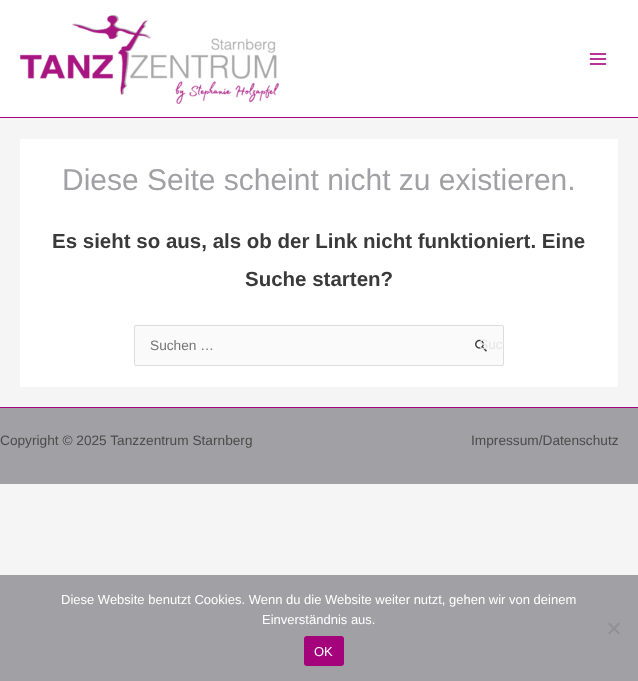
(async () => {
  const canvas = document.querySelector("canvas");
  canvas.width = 638;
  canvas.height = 681;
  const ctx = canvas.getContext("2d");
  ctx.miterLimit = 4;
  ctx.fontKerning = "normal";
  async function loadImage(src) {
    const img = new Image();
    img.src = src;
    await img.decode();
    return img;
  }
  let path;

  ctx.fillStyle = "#f5f5f5";
  ctx.fillRect(0, 0, 638, 681);
  ctx.fillStyle = "#ffffff";
  ctx.fillRect(0, 0, 638, 117);
  ctx.fillStyle = "#a4037c";
  ctx.fillRect(0, 117, 638, 1);
  ctx.drawImage(await loadImage("img/1.png"), 20, 14, 259, 90);
  ctx.drawImage(await loadImage("img/2.png"), 589, 53, 18, 12);
  ctx.fillStyle = "#ffffff";
  ctx.fillRect(20, 139, 598, 248);
  ctx.fillStyle = "#fafafa";
  ctx.beginPath();
  ctx.roundRect(134.5, 325.5, 369, 40, 1.5);
  ctx.fill();
  ctx.strokeStyle = "#dddddd";
  ctx.stroke();
  ctx.drawImage(await loadImage("img/3.png"), 475, 339, 12, 13);
  for (const [x, y, w, h, color] of [
    [0, 408, 638, 76, "#a1a1a5"],
    [0, 407, 638, 1, "#a4037c"],
    [0, 575, 638, 106, "#a1a1a5"],
  ]) {
    ctx.fillStyle = color;
    ctx.fillRect(x, y, w, h);
  }
  ctx.fillStyle = "#919193";
  path = new Path2D("M618.5 622.5L620 624L609.5 634.5L608 633Z");
  ctx.fill(path);
  path = new Path2D("M608 624L609.5 622.5L620 633L618.5 634.5Z");
  ctx.fill(path);
  ctx.fillStyle = "#a4037c";
  ctx.beginPath();
  ctx.roundRect(304, 636, 40, 30, 3);
  ctx.fill();
  ctx.font = "30px Liberation Sans";
  ctx.fillStyle = "#a1a1a5";
  ctx.fillText("Diese Seite scheint nicht zu existieren.", 62, 190);
  ctx.font = "bold 20.5px Liberation Sans";
  ctx.fillStyle = "#3a3a3a";
  ctx.fillText("Es sieht so aus, als ob der Link nicht funktioniert. Eine", 52, 248);
  ctx.fillText("Suche starten?", 245, 286);
  ctx.font = "13.7px Liberation Sans";
  ctx.fillStyle = "#757575";
  ctx.fillText("Suchen …", 150, 350);
  ctx.fillStyle = "#e5e5e5";
  ctx.fillText("Suc", 479, 349);
  ctx.fillStyle = "#4c4c4c";
  ctx.fillText("Copyright © 2025 Tanzzentrum Starnberg", 0, 445);
  ctx.fillText("Impressum/Datenschutz", 471, 445);
  ctx.font = "13px Liberation Sans";
  ctx.fillStyle = "#ffffff";
  for (const [text, x, y] of [
    ["Diese Website benutzt Cookies. Wenn du die Website weiter nutzt, gehen wir von deinem", 61, 604],
    ["Einverständnis aus.", 262, 624],
    ["OK", 314, 656],
  ]) {
    ctx.fillText(text, x, y);
  }
})();
